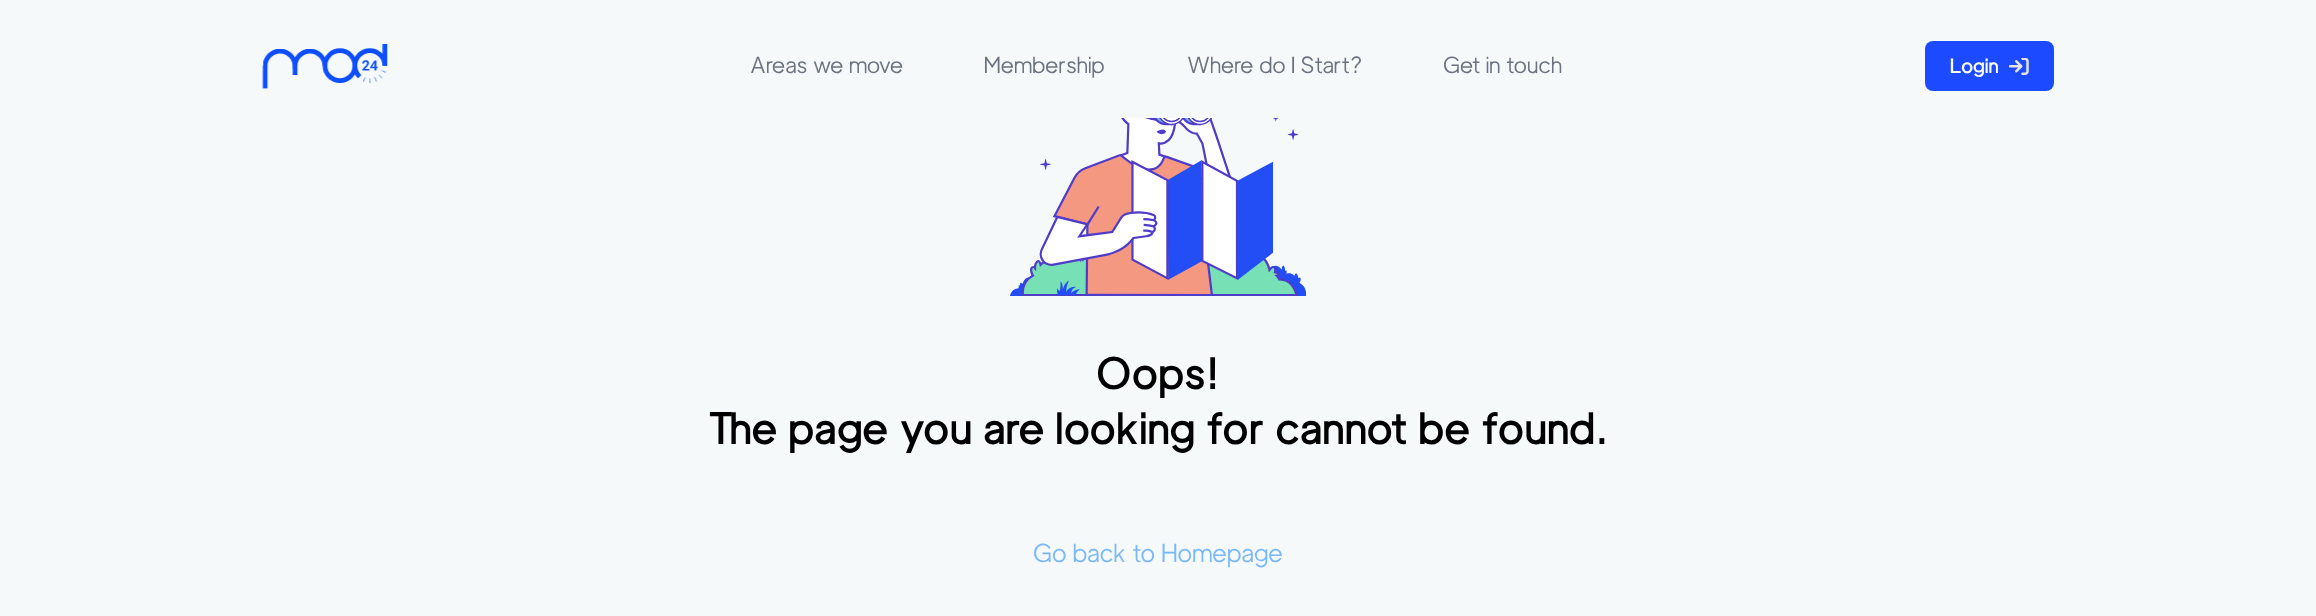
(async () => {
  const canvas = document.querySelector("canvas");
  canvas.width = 2316;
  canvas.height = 616;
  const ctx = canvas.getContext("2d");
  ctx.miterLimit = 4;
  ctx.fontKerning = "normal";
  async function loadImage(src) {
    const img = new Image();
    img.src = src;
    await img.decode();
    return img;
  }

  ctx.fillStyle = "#f6f9fa";
  ctx.fillRect(0, 0, 2316, 616);
  ctx.drawImage(await loadImage("img/1.png"), 262, 44, 126, 45);
  ctx.fillStyle = "#1c4bff";
  ctx.beginPath();
  ctx.roundRect(1925, 41, 129, 50, 8);
  ctx.fill();
  ctx.drawImage(await loadImage("img/2.png"), 2009, 58, 20, 17);
  ctx.drawImage(await loadImage("img/3.png"), 1010, 118, 296, 178);
  ctx.font = "300 22.5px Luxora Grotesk";
  ctx.fillStyle = "#6b7381";
  for (const [text, x, y] of [
    ["Areas we move", 750, 73],
    ["Membership", 984, 73],
    ["Where do I Start?", 1187, 73],
    ["Get in touch", 1443, 73],
  ]) {
    ctx.fillText(text, x, y);
  }
  ctx.font = "20px Luxora Grotesk";
  ctx.fillStyle = "#ffffff";
  ctx.fillText("Login", 1950, 73);
  ctx.font = "43.75px Luxora Grotesk";
  ctx.fillStyle = "#000000";
  ctx.fillText("Oops!", 1096, 389);
  ctx.fillText("The page you are looking for cannot be found.", 708, 444);
  ctx.font = "300 25px Luxora Grotesk";
  ctx.fillStyle = "#79b8f9";
  ctx.fillText("Go back to Homepage", 1033, 562);
})();
